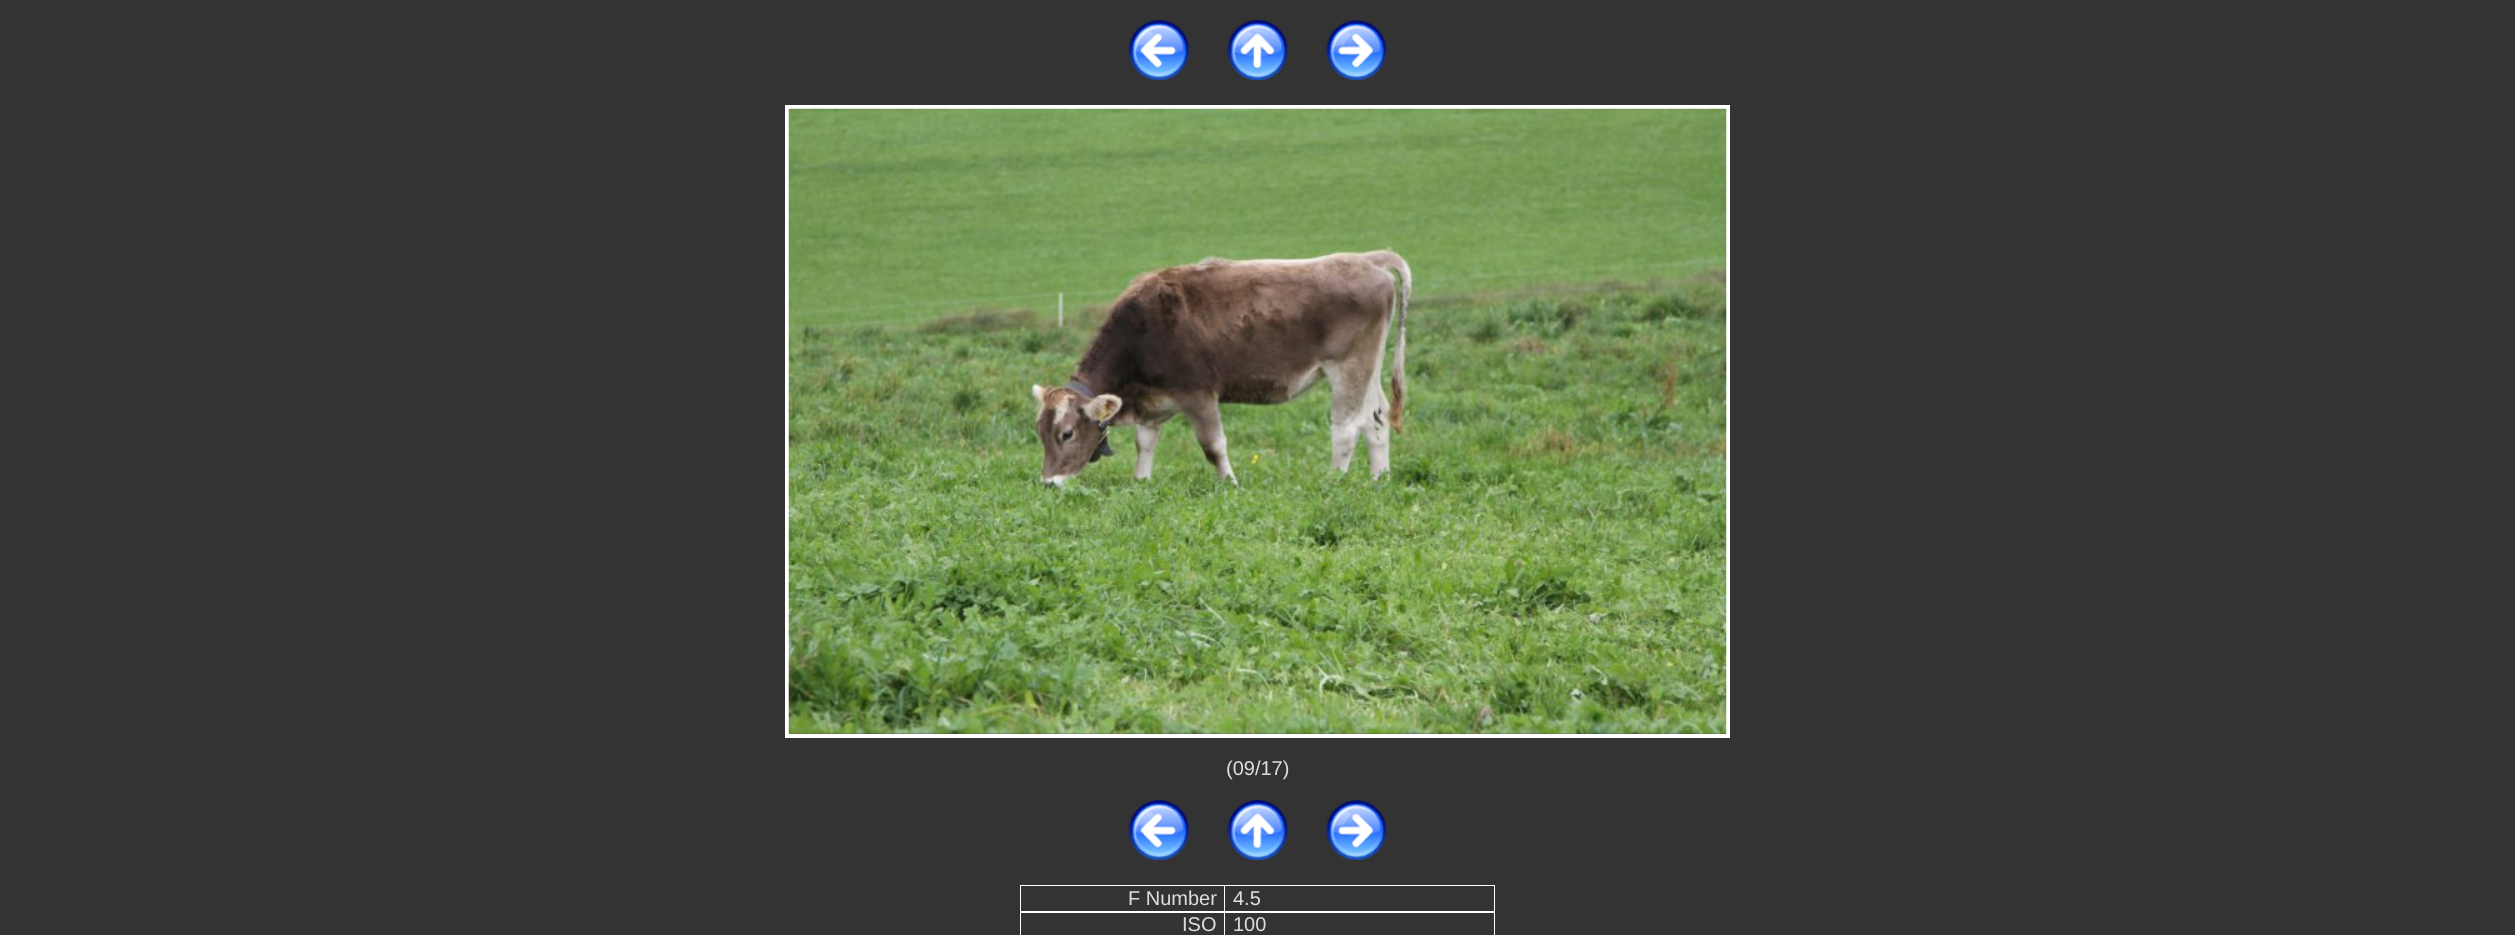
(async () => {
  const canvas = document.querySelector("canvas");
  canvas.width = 2515;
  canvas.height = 935;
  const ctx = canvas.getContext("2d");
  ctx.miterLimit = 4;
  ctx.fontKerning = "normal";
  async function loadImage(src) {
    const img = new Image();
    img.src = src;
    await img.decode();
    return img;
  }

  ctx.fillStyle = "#333333";
  ctx.fillRect(0, 0, 2515, 935);
  ctx.drawImage(await loadImage("img/1.png"), 1128, 20, 61, 60);
  ctx.drawImage(await loadImage("img/2.png"), 1227, 20, 61, 60);
  ctx.drawImage(await loadImage("img/3.png"), 1326, 20, 61, 60);
  ctx.strokeStyle = "#ffffff";
  ctx.lineWidth = 4;
  ctx.strokeRect(787, 107, 941, 629);
  ctx.drawImage(await loadImage("img/4.png"), 788, 108, 939, 626);
  ctx.drawImage(await loadImage("img/1.png"), 1128, 800, 61, 60);
  ctx.drawImage(await loadImage("img/2.png"), 1227, 800, 61, 60);
  ctx.drawImage(await loadImage("img/3.png"), 1326, 800, 61, 60);
  for (const [x, y, w, h, color] of [
    [1020, 885, 475, 50, "#ffffff"],
    [1021, 886, 203, 25, "#333333"],
    [1225, 886, 269, 25, "#333333"],
    [1021, 913, 203, 22, "#333333"],
    [1225, 913, 269, 22, "#333333"],
  ]) {
    ctx.fillStyle = color;
    ctx.fillRect(x, y, w, h);
  }
  ctx.font = "20px Liberation Sans";
  ctx.fillStyle = "#dddddd";
  for (const [text, x, y] of [
    ["(09/17)", 1226, 775],
    ["F Number", 1128, 905],
    ["4.5", 1233, 905],
    ["ISO", 1182, 931],
    ["100", 1233, 931],
  ]) {
    ctx.fillText(text, x, y);
  }
})();
